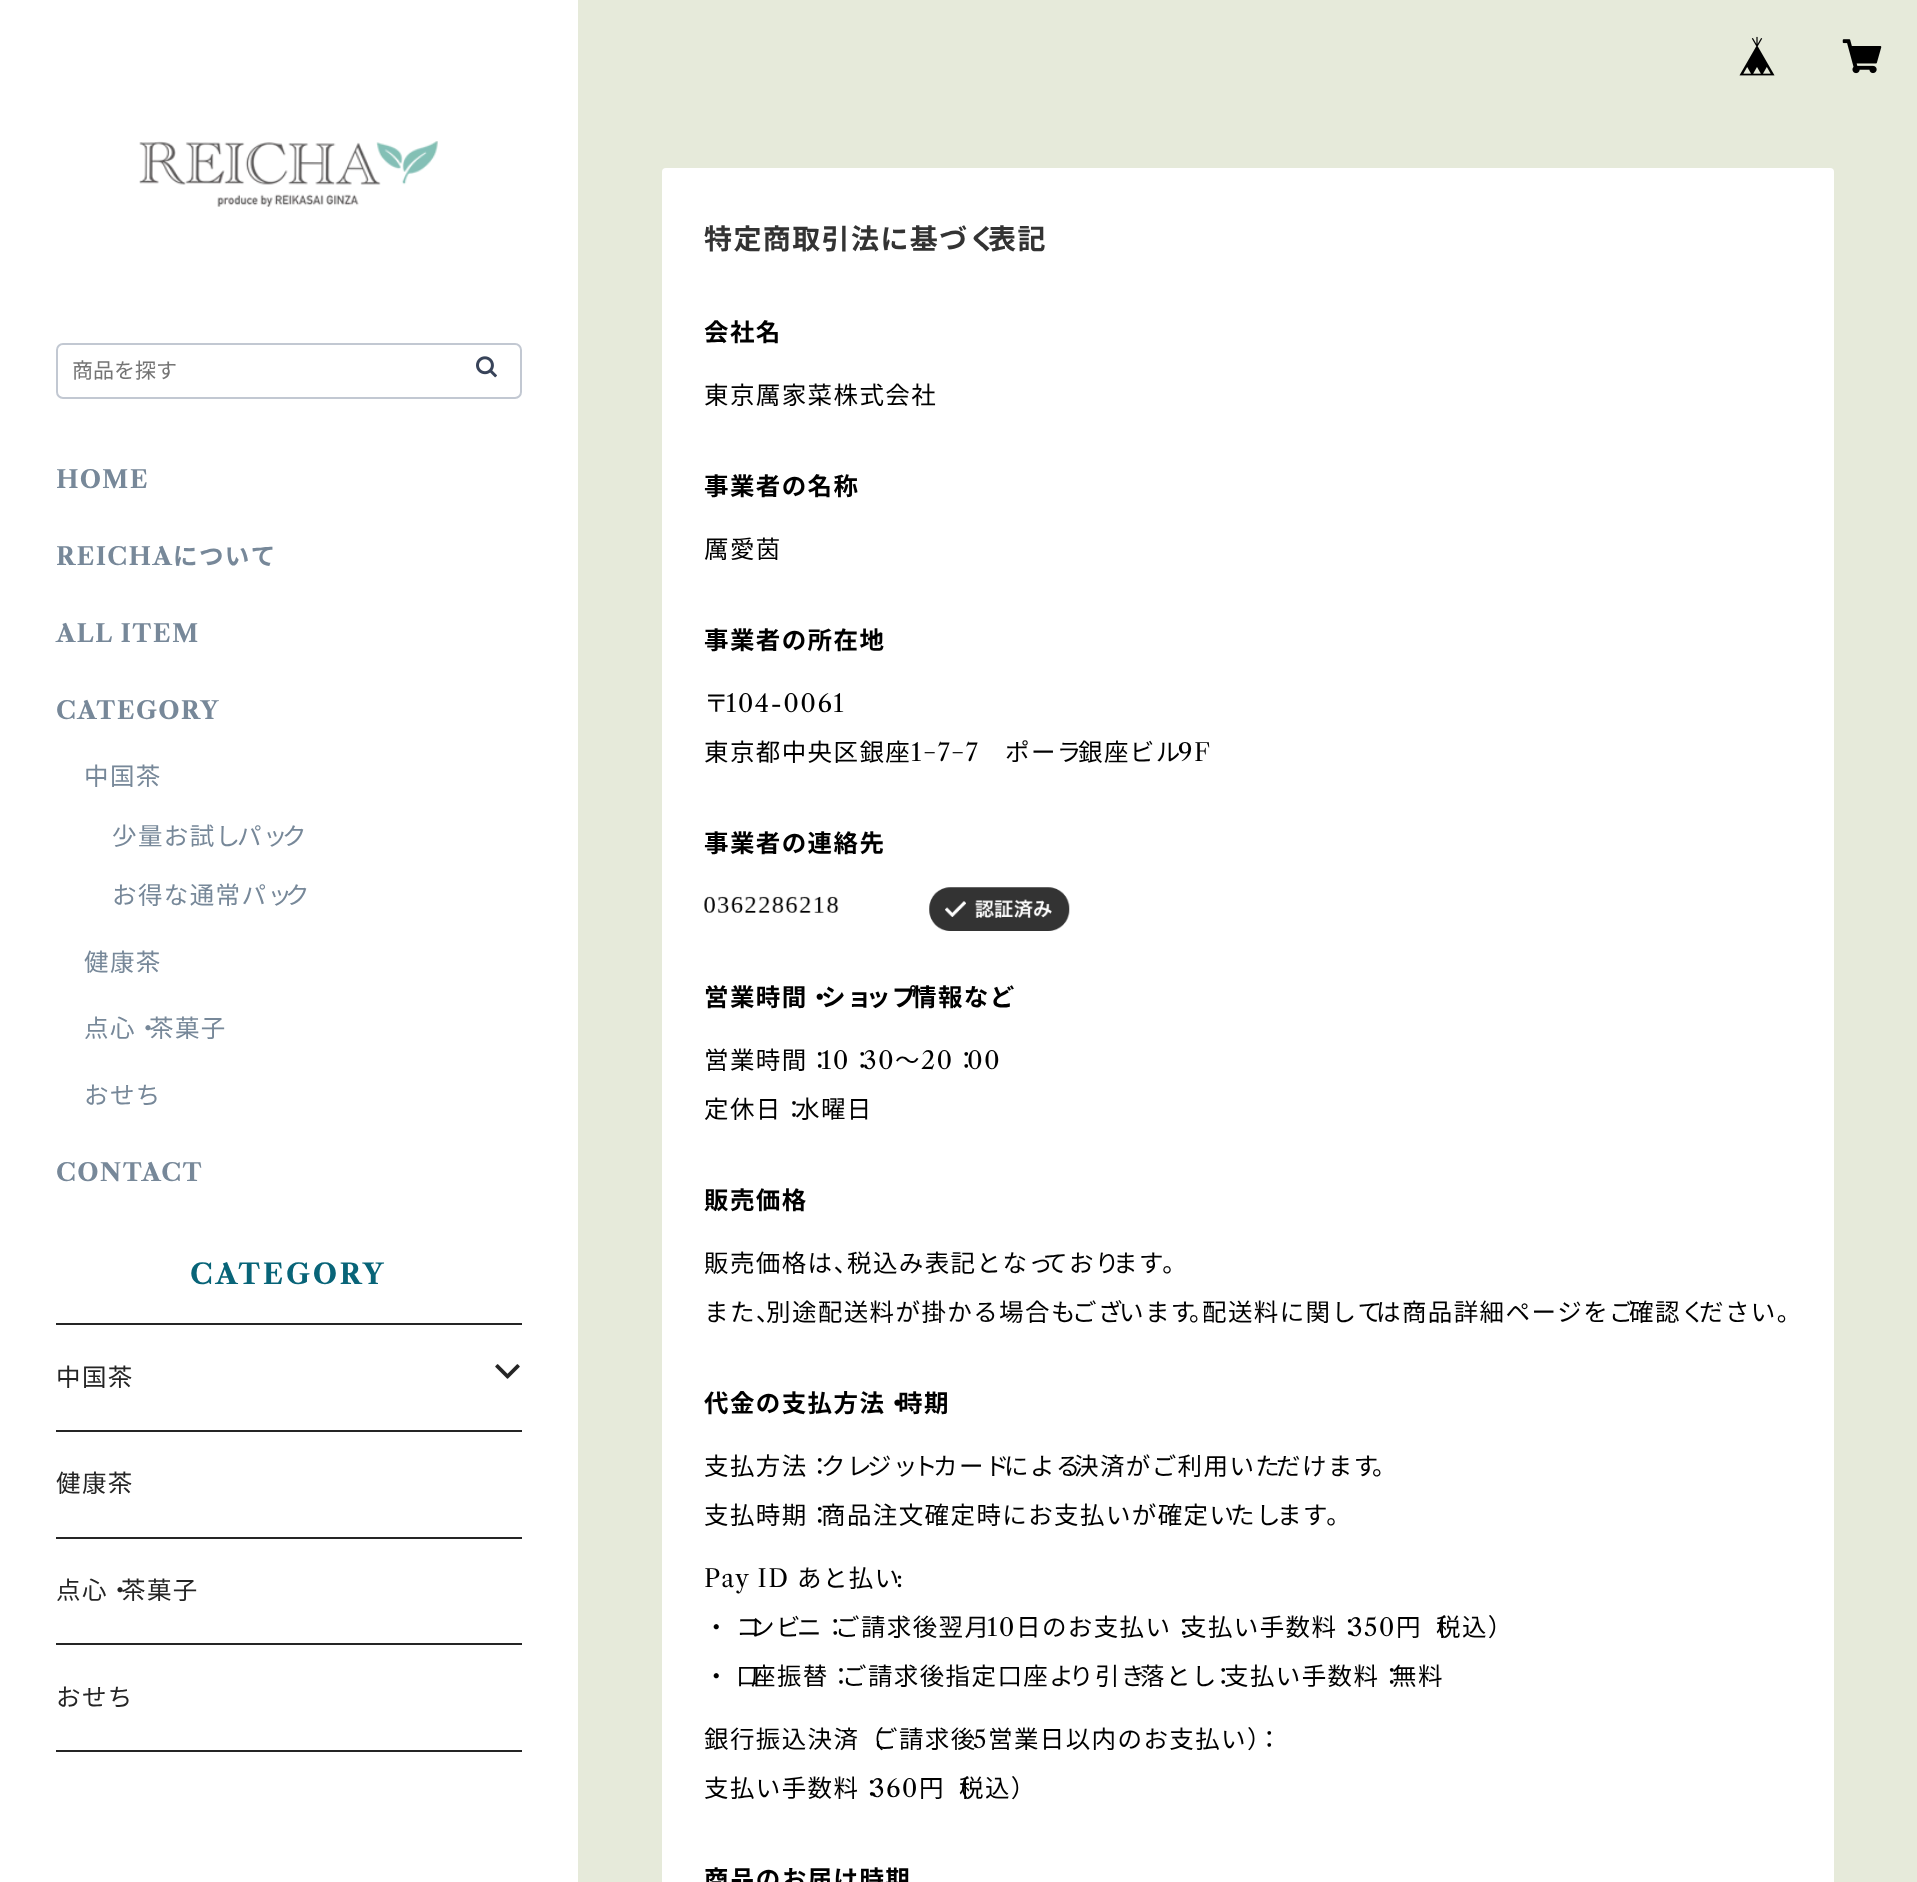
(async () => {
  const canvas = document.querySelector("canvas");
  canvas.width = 1917;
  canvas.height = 1882;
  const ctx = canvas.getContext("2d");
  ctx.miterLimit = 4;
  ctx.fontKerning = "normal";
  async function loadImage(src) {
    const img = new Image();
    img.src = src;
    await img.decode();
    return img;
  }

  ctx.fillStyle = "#e6eada";
  ctx.fillRect(0, 0, 1917, 1882);
  ctx.drawImage(await loadImage("img/1.png"), 1739, 36, 36, 40);
  ctx.drawImage(await loadImage("img/2.png"), 1842, 39, 40, 35);
  ctx.fillStyle = "#ffffff";
  ctx.fillRect(0, 0, 578, 1882);
  ctx.drawImage(await loadImage("img/3.png"), 139, 141, 299, 66);
  ctx.beginPath();
  ctx.roundRect(57, 344, 464, 54, 6);
  ctx.strokeStyle = "#c2c8d2";
  ctx.lineWidth = 2;
  ctx.stroke();
  ctx.drawImage(await loadImage("img/4.png"), 476, 356, 21, 22);
  ctx.fillStyle = "#252525";
  ctx.fillRect(56, 1323, 466, 2);
  ctx.fillRect(56, 1750, 466, 2);
  ctx.drawImage(await loadImage("img/5.png"), 495, 1364, 25, 15);
  for (const [x, y, w, h, color] of [
    [56, 1430, 466, 2, "#252525"],
    [56, 1537, 466, 2, "#252525"],
    [56, 1643, 466, 2, "#252525"],
  ]) {
    ctx.fillStyle = color;
    ctx.fillRect(x, y, w, h);
  }
  ctx.fillStyle = "#ffffff";
  ctx.beginPath();
  ctx.roundRect(662, 168, 1172, 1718, 4);
  ctx.fill();
  ctx.drawImage(await loadImage("img/6.png"), 704, 896, 135, 17);
  ctx.drawImage(await loadImage("img/7.png"), 929, 887, 141, 44);
  ctx.font = "21px Noto Sans JP";
  ctx.fillStyle = "#757575";
  ctx.fillText("商品を探す", 72, 378);
  ctx.letterSpacing = "1.4px";
  ctx.font = "bold 24.5px Libre Caslon Text";
  ctx.fillStyle = "#778899";
  ctx.fillText("HOME", 56, 488);
  ctx.fillText("REICHA", 56, 565);
  ctx.font = "bold 24.5px Noto Sans JP";
  ctx.fillText("について", 173, 565);
  ctx.font = "bold 24.5px Libre Caslon Text";
  ctx.fillText("ALL ITEM", 56, 642);
  ctx.fillText("CATEGORY", 56, 719);
  ctx.font = "24.5px Noto Sans JP";
  for (const [text, x, y] of [
    ["中国茶", 84, 785],
    ["少量お試し", 112, 845],
    ["パッ", 237, 845],
    ["ク", 282, 845],
    ["お得な通常パッ", 112, 904],
    ["ク", 285, 904],
    ["健康茶", 84, 971],
    ["点心・", 84, 1037],
    ["茶菓子", 149, 1037],
    ["おせち", 84, 1104],
  ]) {
    ctx.fillText(text, x, y);
  }
  ctx.font = "bold 24.5px Libre Caslon Text";
  ctx.fillText("CONTACT", 56, 1181);
  ctx.letterSpacing = "2.75px";
  ctx.font = "bold 28px Libre Caslon Text";
  ctx.fillStyle = "#086478";
  ctx.fillText("CATEGORY", 190, 1284);
  ctx.letterSpacing = "1.4px";
  ctx.font = "24.5px Noto Sans JP";
  ctx.fillStyle = "#252525";
  for (const [text, x, y] of [
    ["中国茶", 56, 1386],
    ["健康茶", 56, 1492],
    ["点心・", 56, 1599],
    ["茶菓子", 121, 1599],
    ["おせち", 56, 1706],
  ]) {
    ctx.fillText(text, x, y);
  }
  ctx.font = "bold 28px Noto Sans JP";
  ctx.fillStyle = "#333333";
  ctx.fillText("特定商取引法に基づく", 704, 249);
  ctx.fillText("表記", 988, 249);
  ctx.font = "bold 24.5px Noto Sans JP";
  ctx.fillStyle = "#000000";
  ctx.fillText("会社名", 704, 341);
  ctx.font = "24.5px Noto Sans JP";
  ctx.fillText("東京厲家菜株式会社", 704, 404);
  ctx.font = "bold 24.5px Noto Sans JP";
  ctx.fillText("事業者の名称", 704, 495);
  ctx.font = "24.5px Noto Sans JP";
  ctx.fillText("厲愛茵", 704, 558);
  ctx.font = "bold 24.5px Noto Sans JP";
  ctx.fillText("事業者の所在地", 704, 649);
  ctx.font = "24.5px Noto Sans JP";
  ctx.fillText("〒", 704, 712);
  ctx.font = "24.5px Libre Caslon Text";
  ctx.fillText("104-0061", 726, 712);
  ctx.font = "24.5px Noto Sans JP";
  ctx.fillText("東京都中央区銀座", 704, 761);
  ctx.font = "24.5px Libre Caslon Text";
  ctx.fillText("1−7−7", 911, 761);
  ctx.font = "24.5px Noto Sans JP";
  ctx.fillText("ポーラ", 1005, 761);
  ctx.fillText("銀座ビル", 1078, 761);
  ctx.font = "24.5px Libre Caslon Text";
  ctx.fillText("9F", 1178, 761);
  ctx.font = "bold 24.5px Noto Sans JP";
  ctx.fillText("事業者の連絡先", 704, 852);
  ctx.fillText("営業時間・", 704, 1006);
  ctx.fillText("ショ", 821, 1006);
  ctx.fillText("ップ", 866, 1006);
  ctx.fillText("情報など", 912, 1006);
  ctx.font = "24.5px Noto Sans JP";
  ctx.fillText("営業時間：", 704, 1069);
  ctx.font = "24.5px Libre Caslon Text";
  ctx.fillText("10", 821, 1069);
  ctx.font = "24.5px Noto Sans JP";
  ctx.fillText("：", 850, 1069);
  ctx.font = "24.5px Libre Caslon Text";
  ctx.fillText("30", 863, 1069);
  ctx.font = "24.5px Noto Sans JP";
  ctx.fillText("〜", 895, 1069);
  ctx.font = "24.5px Libre Caslon Text";
  ctx.fillText("20", 921, 1069);
  ctx.font = "24.5px Noto Sans JP";
  ctx.fillText("：", 954, 1069);
  ctx.font = "24.5px Libre Caslon Text";
  ctx.fillText("00", 967, 1069);
  ctx.font = "24.5px Noto Sans JP";
  ctx.fillText("定休日：", 704, 1118);
  ctx.fillText("水曜日", 795, 1118);
  ctx.font = "bold 24.5px Noto Sans JP";
  ctx.fillText("販売価格", 704, 1209);
  ctx.font = "24.5px Noto Sans JP";
  ctx.fillText("販売価格は、", 704, 1272);
  ctx.fillText("税込み表記となっ", 847, 1272);
  ctx.fillText("ており", 1043, 1272);
  ctx.fillText("ます。", 1113, 1272);
  ctx.fillText("また、", 704, 1321);
  ctx.fillText("別途配送料が掛かる場合も", 766, 1321);
  ctx.fillText("ござ", 1072, 1321);
  ctx.fillText("います", 1119, 1321);
  ctx.fillText("。", 1189, 1321);
  ctx.fillText("配送料に関して", 1202, 1321);
  ctx.fillText("は商品詳細ページをご", 1376, 1321);
  ctx.fillText("確認く", 1629, 1321);
  ctx.fillText("ださい。", 1699, 1321);
  ctx.font = "bold 24.5px Noto Sans JP";
  ctx.fillText("代金の支払方法・", 704, 1412);
  ctx.fillText("時期", 898, 1412);
  ctx.font = "24.5px Noto Sans JP";
  ctx.fillText("支払方法：", 704, 1475);
  ctx.fillText("クレ", 821, 1475);
  ctx.fillText("ジッ", 867, 1475);
  ctx.fillText("ト", 913, 1475);
  ctx.fillText("カード", 933, 1475);
  ctx.fillText("による", 1004, 1475);
  ctx.fillText("決済がご利用いた", 1074, 1475);
  ctx.fillText("だけます", 1276, 1475);
  ctx.fillText("。", 1372, 1475);
  ctx.fillText("支払時期：", 704, 1524);
  ctx.fillText("商品注文確定時にお支払いが確定い", 821, 1524);
  ctx.fillText("たし", 1230, 1524);
  ctx.fillText("ます。", 1277, 1524);
  ctx.font = "24.5px Libre Caslon Text";
  ctx.fillText("Pay ID", 704, 1587);
  ctx.font = "24.5px Noto Sans JP";
  ctx.fillText("あと払い", 797, 1587);
  ctx.font = "24.5px Libre Caslon Text";
  ctx.fillText(":", 896, 1587);
  ctx.wordSpacing = "1px";
  ctx.font = "24.5px Noto Sans JP";
  ctx.fillText("・", 704, 1636);
  ctx.fillText("コ", 736, 1636);
  ctx.fillText("ンビ", 750, 1636);
  ctx.fillText("ニ：", 797, 1636);
  ctx.fillText("ご請求後翌月", 835, 1636);
  ctx.wordSpacing = "0px";
  ctx.font = "24.5px Libre Caslon Text";
  ctx.fillText("10", 987, 1636);
  ctx.font = "24.5px Noto Sans JP";
  ctx.fillText("日のお支払い：", 1016, 1636);
  ctx.fillText("支払い手数料：", 1182, 1636);
  ctx.font = "24.5px Libre Caslon Text";
  ctx.fillText("350", 1349, 1636);
  ctx.font = "24.5px Noto Sans JP";
  ctx.fillText("円（", 1396, 1636);
  ctx.fillText("税込）", 1436, 1636);
  ctx.wordSpacing = "1px";
  ctx.fillText("・", 704, 1685);
  ctx.fillText("口", 736, 1685);
  ctx.fillText("座振替：", 751, 1685);
  ctx.fillText("ご請求後指定口座よ", 842, 1685);
  ctx.fillText("り引き", 1069, 1685);
  ctx.fillText("落とし", 1140, 1685);
  ctx.fillText("：", 1211, 1685);
  ctx.fillText("支払い手数料：", 1224, 1685);
  ctx.fillText("無料", 1392, 1685);
  ctx.wordSpacing = "0px";
  ctx.fillText("銀行振込決済（", 704, 1748);
  ctx.fillText("ご請求後", 873, 1748);
  ctx.font = "24.5px Libre Caslon Text";
  ctx.fillText("5", 973, 1748);
  ctx.font = "24.5px Noto Sans JP";
  ctx.fillText("営業日以内のお支払い）", 988, 1748);
  ctx.fillText("：", 1257, 1748);
  ctx.fillText("支払い手数料：", 704, 1797);
  ctx.font = "24.5px Libre Caslon Text";
  ctx.fillText("360", 871, 1797);
  ctx.font = "24.5px Noto Sans JP";
  ctx.fillText("円（", 919, 1797);
  ctx.fillText("税込）", 959, 1797);
  ctx.font = "bold 24.5px Noto Sans JP";
  ctx.fillText("商品のお届け時期", 704, 1888);
})();
